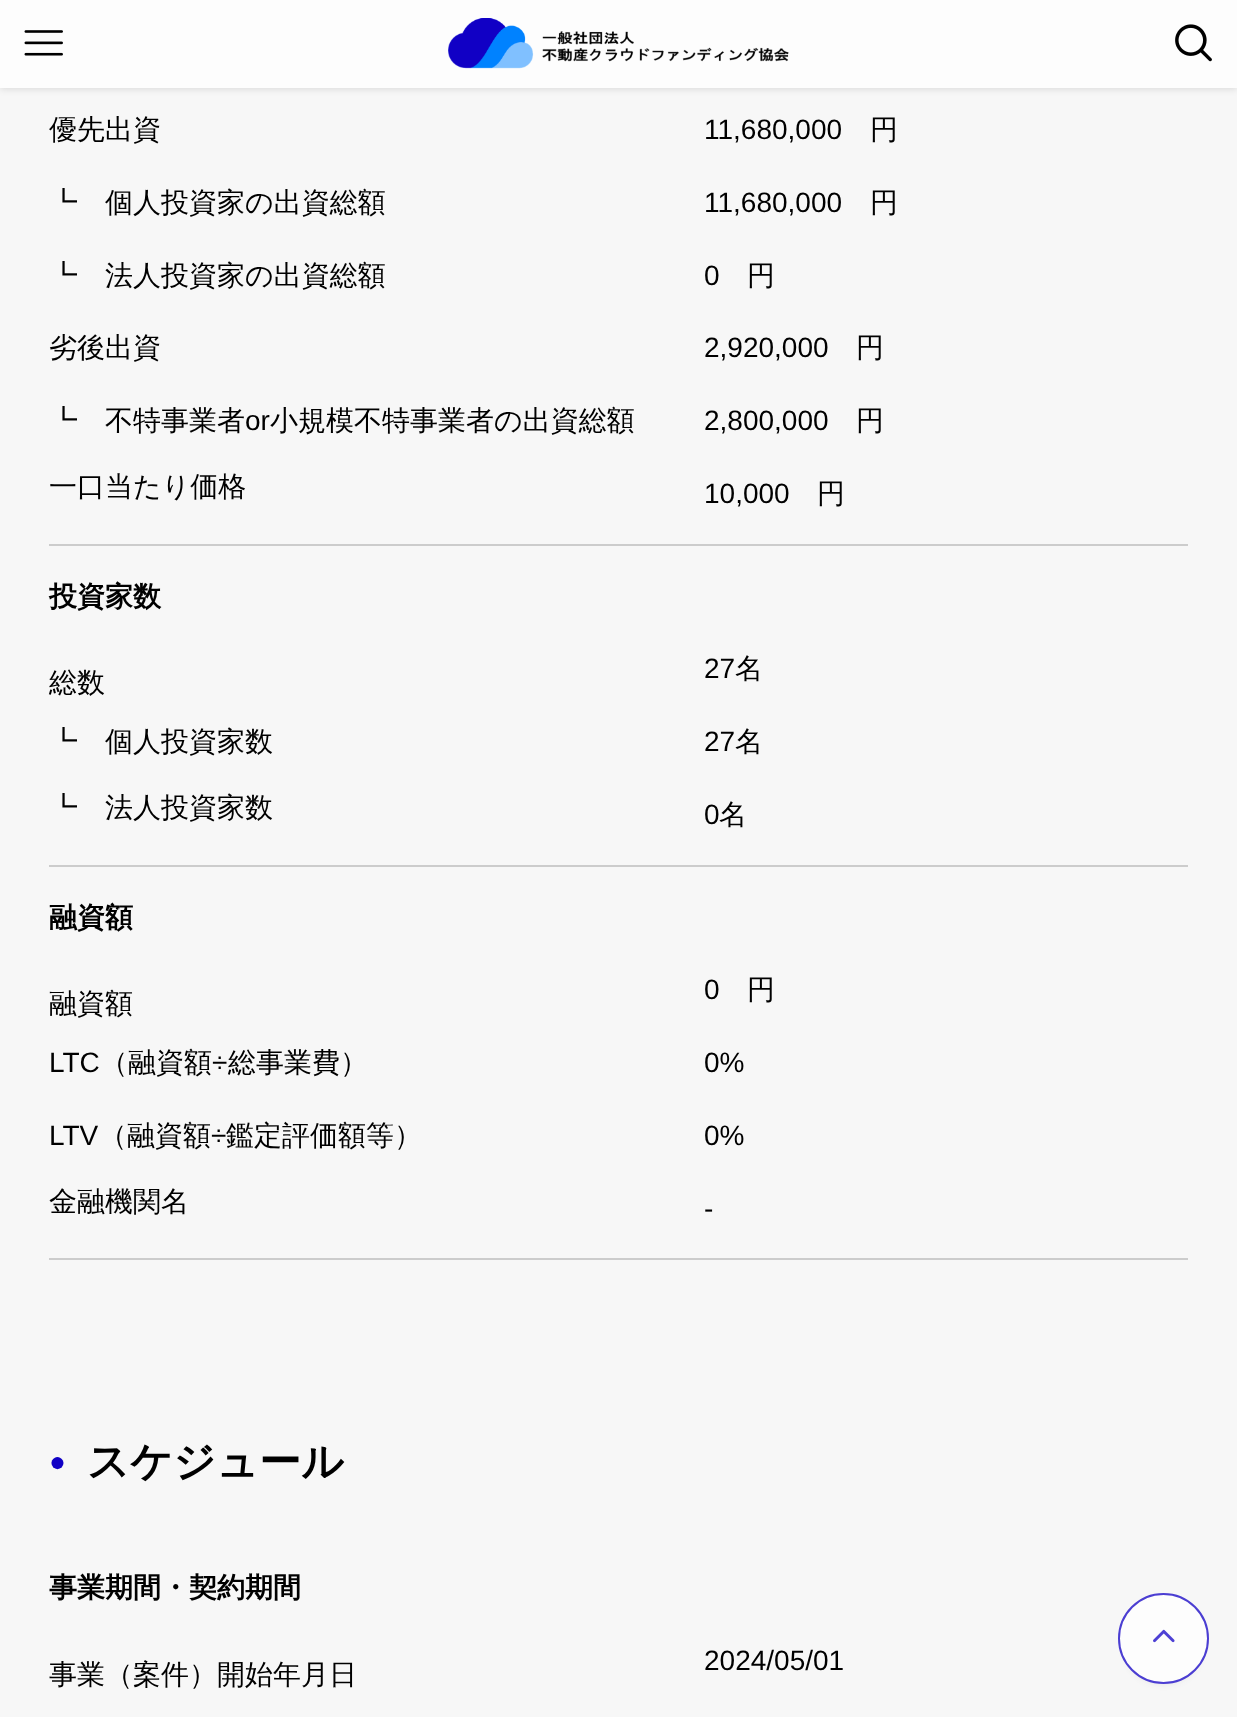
(async () => {
  const canvas = document.querySelector("canvas");
  canvas.width = 1237;
  canvas.height = 1717;
  const ctx = canvas.getContext("2d");
  ctx.miterLimit = 4;
  ctx.fontKerning = "normal";
  async function loadImage(src) {
    const img = new Image();
    img.src = src;
    await img.decode();
    return img;
  }

  ctx.fillStyle = "#f7f7f7";
  ctx.fillRect(0, 0, 1237, 1717);
  ctx.fillStyle = "rgba(0, 0, 0, 0.12)";
  ctx.filter = "blur(3.5px)";
  ctx.beginPath();
  ctx.rect(0, 2, 1237, 87);
  ctx.fill();
  ctx.filter = "none";
  ctx.fillStyle = "#fdfdfd";
  ctx.fillRect(0, 0, 1237, 88);
  ctx.drawImage(await loadImage("img/1.png"), 24, 30, 39, 26);
  ctx.drawImage(await loadImage("img/2.png"), 448, 18, 341, 51);
  ctx.drawImage(await loadImage("img/3.png"), 1175, 24, 37, 38);
  for (const [x, y, w, h, color] of [
    [49, 544, 1139, 2, "#cccccc"],
    [49, 865, 1139, 2, "#cccccc"],
    [49, 1258, 1139, 2, "#cccccc"],
  ]) {
    ctx.fillStyle = color;
    ctx.fillRect(x, y, w, h);
  }
  ctx.fillStyle = "rgba(62, 62, 62, 0.1)";
  ctx.filter = "blur(3.5px)";
  ctx.beginPath();
  ctx.roundRect(1125, 1607, 77, 77, 38.5);
  ctx.fill();
  ctx.filter = "none";
  ctx.fillStyle = "#fdfdfd";
  ctx.beginPath();
  ctx.arc(1163.5, 1638.5, 44.5, 0, Math.PI * 2);
  ctx.fill();
  ctx.strokeStyle = "#4b3ed2";
  ctx.lineWidth = 2;
  ctx.stroke();
  ctx.drawImage(await loadImage("img/4.png"), 1153, 1629, 22, 14);
  ctx.font = "500 28px WenQuanYi Zen Hei";
  ctx.fillStyle = "#000000";
  ctx.fillText("優先出資", 49, 139);
  ctx.font = "28px Liberation Sans";
  ctx.fillText("11,680,000", 704, 139);
  ctx.font = "500 28px WenQuanYi Zen Hei";
  for (const [text, x, y] of [
    ["円", 870, 139],
    ["┗", 49, 212],
    ["個人投資家の出資総額", 105, 212],
  ]) {
    ctx.fillText(text, x, y);
  }
  ctx.font = "28px Liberation Sans";
  ctx.fillText("11,680,000", 704, 212);
  ctx.font = "500 28px WenQuanYi Zen Hei";
  for (const [text, x, y] of [
    ["円", 870, 212],
    ["┗", 49, 285],
    ["法人投資家の出資総額", 105, 285],
  ]) {
    ctx.fillText(text, x, y);
  }
  ctx.font = "28px Liberation Sans";
  ctx.fillText("0", 704, 285);
  ctx.font = "500 28px WenQuanYi Zen Hei";
  ctx.fillText("円", 747, 285);
  ctx.fillText("劣後出資", 49, 357);
  ctx.font = "28px Liberation Sans";
  ctx.fillText("2,920,000", 704, 357);
  ctx.font = "500 28px WenQuanYi Zen Hei";
  for (const [text, x, y] of [
    ["円", 856, 357],
    ["┗", 49, 430],
    ["不特事業者", 105, 430],
  ]) {
    ctx.fillText(text, x, y);
  }
  ctx.font = "28px Liberation Sans";
  ctx.fillText("or", 245, 430);
  ctx.font = "500 28px WenQuanYi Zen Hei";
  ctx.fillText("小規模不特事業者の出資総額", 270, 430);
  ctx.font = "28px Liberation Sans";
  ctx.fillText("2,800,000", 704, 430);
  ctx.font = "500 28px WenQuanYi Zen Hei";
  ctx.fillText("円", 856, 430);
  ctx.fillText("一口当たり価格", 49, 496);
  ctx.font = "28px Liberation Sans";
  ctx.fillText("10,000", 704, 503);
  ctx.font = "500 28px WenQuanYi Zen Hei";
  ctx.fillText("円", 817, 503);
  ctx.font = "bold 28px WenQuanYi Zen Hei";
  ctx.fillText("投資家数", 49, 606);
  ctx.font = "500 28px WenQuanYi Zen Hei";
  ctx.fillText("総数", 49, 692);
  ctx.font = "28px Liberation Sans";
  ctx.fillText("27", 704, 678);
  ctx.font = "500 28px WenQuanYi Zen Hei";
  for (const [text, x, y] of [
    ["名", 735, 678],
    ["┗", 49, 751],
    ["個人投資家数", 105, 751],
  ]) {
    ctx.fillText(text, x, y);
  }
  ctx.font = "28px Liberation Sans";
  ctx.fillText("27", 704, 751);
  ctx.font = "500 28px WenQuanYi Zen Hei";
  for (const [text, x, y] of [
    ["名", 735, 751],
    ["┗", 49, 817],
    ["法人投資家数", 105, 817],
  ]) {
    ctx.fillText(text, x, y);
  }
  ctx.font = "28px Liberation Sans";
  ctx.fillText("0", 704, 824);
  ctx.font = "500 28px WenQuanYi Zen Hei";
  ctx.fillText("名", 719, 824);
  ctx.font = "bold 28px WenQuanYi Zen Hei";
  ctx.fillText("融資額", 49, 927);
  ctx.font = "500 28px WenQuanYi Zen Hei";
  ctx.fillText("融資額", 49, 1013);
  ctx.font = "28px Liberation Sans";
  ctx.fillText("0", 704, 999);
  ctx.font = "500 28px WenQuanYi Zen Hei";
  ctx.fillText("円", 747, 999);
  ctx.font = "28px Liberation Sans";
  ctx.fillText("LTC", 49, 1072);
  ctx.font = "500 28px WenQuanYi Zen Hei";
  ctx.fillText("（融資額", 100, 1072);
  ctx.font = "28px Liberation Sans";
  ctx.fillText("÷", 212, 1072);
  ctx.font = "500 28px WenQuanYi Zen Hei";
  ctx.fillText("総事業費）", 228, 1072);
  ctx.font = "28px Liberation Sans";
  ctx.fillText("0%", 704, 1072);
  ctx.fillText("LTV", 49, 1145);
  ctx.font = "500 28px WenQuanYi Zen Hei";
  ctx.fillText("（融資額", 99, 1145);
  ctx.font = "28px Liberation Sans";
  ctx.fillText("÷", 211, 1145);
  ctx.font = "500 28px WenQuanYi Zen Hei";
  ctx.fillText("鑑定評価額等）", 226, 1145);
  ctx.font = "28px Liberation Sans";
  ctx.fillText("0%", 704, 1145);
  ctx.font = "500 28px WenQuanYi Zen Hei";
  ctx.fillText("金融機関名", 49, 1211);
  ctx.font = "28px Liberation Sans";
  ctx.fillText("-", 704, 1218);
  ctx.font = "bold 28px Liberation Sans";
  ctx.fillStyle = "#1100c5";
  ctx.fillText("●", 49, 1471);
  ctx.font = "bold 42px WenQuanYi Zen Hei";
  ctx.fillStyle = "#000000";
  ctx.fillText("スケジュール", 87, 1476);
  ctx.font = "bold 28px WenQuanYi Zen Hei";
  ctx.fillText("事業期間・契約期間", 49, 1597);
  ctx.font = "500 28px WenQuanYi Zen Hei";
  ctx.fillText("事業（案件）開始年月日", 49, 1684);
  ctx.font = "28px Liberation Sans";
  ctx.fillText("2024/05/01", 704, 1670);
})();
